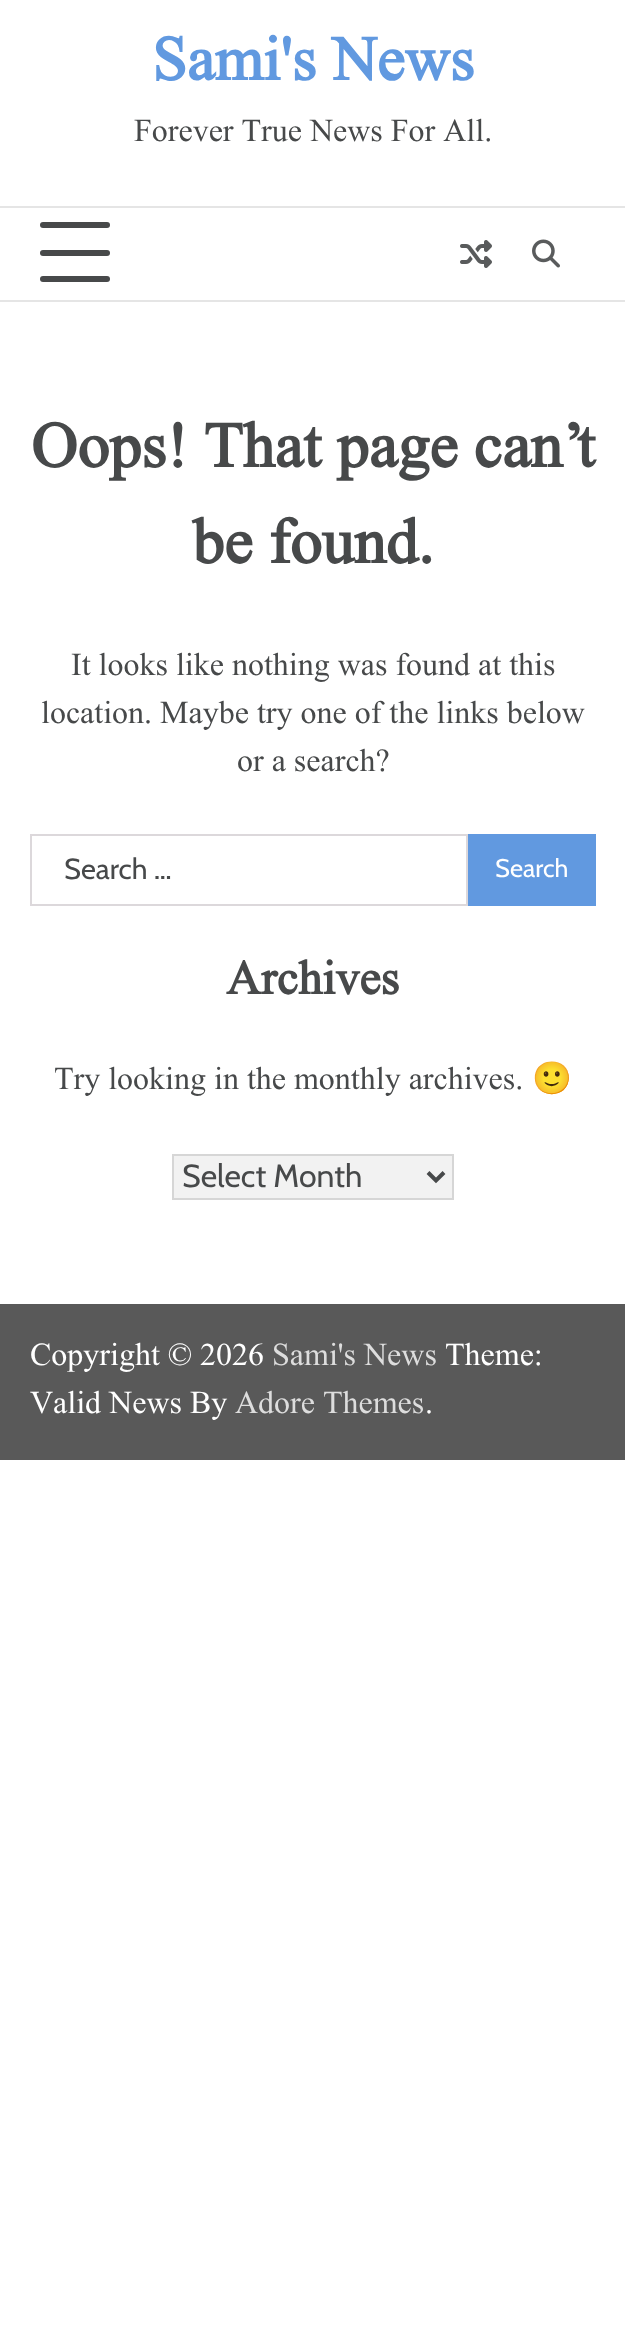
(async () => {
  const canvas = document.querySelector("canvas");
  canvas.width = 625;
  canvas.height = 2334;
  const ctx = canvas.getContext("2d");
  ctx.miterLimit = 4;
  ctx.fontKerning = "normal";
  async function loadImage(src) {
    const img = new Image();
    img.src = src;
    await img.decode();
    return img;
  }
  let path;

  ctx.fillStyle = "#ffffff";
  ctx.fillRect(0, 0, 625, 2334);
  ctx.fillStyle = "#e5e5e5";
  ctx.fillRect(0, 206, 625, 2);
  ctx.fillStyle = "#47494a";
  ctx.beginPath();
  ctx.roundRect(40, 222, 70, 6, 3);
  ctx.fill();
  ctx.beginPath();
  ctx.roundRect(40, 250, 70, 6, 3);
  ctx.fill();
  ctx.beginPath();
  ctx.roundRect(40, 276, 70, 6, 3);
  ctx.fill();
  ctx.drawImage(await loadImage("img/1.png"), 460, 240, 32, 28);
  ctx.drawImage(await loadImage("img/2.png"), 532, 239, 28, 29);
  ctx.fillStyle = "#e5e5e5";
  ctx.fillRect(0, 300, 625, 2);
  ctx.strokeStyle = "#dcd8db";
  ctx.lineWidth = 2;
  ctx.strokeRect(31, 835, 436, 70);
  ctx.fillStyle = "#6199e0";
  ctx.fillRect(468, 834, 128, 72);
  ctx.fillStyle = "#f2f2f2";
  ctx.beginPath();
  ctx.rect(173, 1155, 280, 44);
  ctx.fill();
  ctx.strokeStyle = "#d6d6d6";
  ctx.stroke();
  path = new Path2D("M428 1172.5L436 1180.5L444 1172.5");
  ctx.strokeStyle = "#47494a";
  ctx.lineWidth = 4;
  ctx.stroke(path);
  ctx.fillStyle = "#595959";
  ctx.fillRect(0, 1304, 625, 156);
  ctx.font = "bold 62.5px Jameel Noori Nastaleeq";
  ctx.fillStyle = "#6199e0";
  ctx.fillText("Sami's News", 152, 80);
  ctx.font = "32px Jameel Noori Nastaleeq";
  ctx.fillStyle = "#47494a";
  ctx.fillText("Forever True News For All.", 134, 141);
  ctx.font = "bold 64px Jameel Noori Nastaleeq";
  ctx.fillText("Oops! That page can’t", 31, 467);
  ctx.fillText("be found.", 192, 563);
  ctx.font = "32px Jameel Noori Nastaleeq";
  for (const [text, x, y] of [
    ["It looks like nothing was found at this", 71, 675],
    ["location. Maybe try one of the links below", 41, 723],
    ["or a search?", 237, 771],
  ]) {
    ctx.fillText(text, x, y);
  }
  ctx.font = "29px Cabin";
  ctx.fillText("Search …", 64, 879);
  ctx.font = "25.5px Cabin";
  ctx.fillStyle = "#ffffff";
  ctx.fillText("Search", 495, 877);
  ctx.font = "bold 48px Jameel Noori Nastaleeq";
  ctx.fillStyle = "#47494a";
  ctx.fillText("Archives", 226, 994);
  ctx.font = "32px Jameel Noori Nastaleeq";
  ctx.fillText("Try looking in the monthly archives.", 54, 1089);
  ctx.font = "32px Noto Color Emoji";
  ctx.fillText("🙂", 532, 1089);
  ctx.font = "32px Cabin";
  ctx.fillText("Select Month", 182, 1187);
  ctx.font = "32px Jameel Noori Nastaleeq";
  ctx.fillStyle = "#ffffff";
  ctx.fillText("Copyright © 2026", 30, 1365);
  ctx.fillStyle = "#dddddd";
  ctx.fillText("Sami's News", 272, 1365);
  ctx.fillStyle = "#ffffff";
  ctx.fillText("Theme:", 445, 1365);
  ctx.fillText("Valid News By", 30, 1413);
  ctx.fillStyle = "#dddddd";
  ctx.fillText("Adore Themes", 235, 1413);
  ctx.fillStyle = "#ffffff";
  ctx.fillText(".", 425, 1413);
})();
